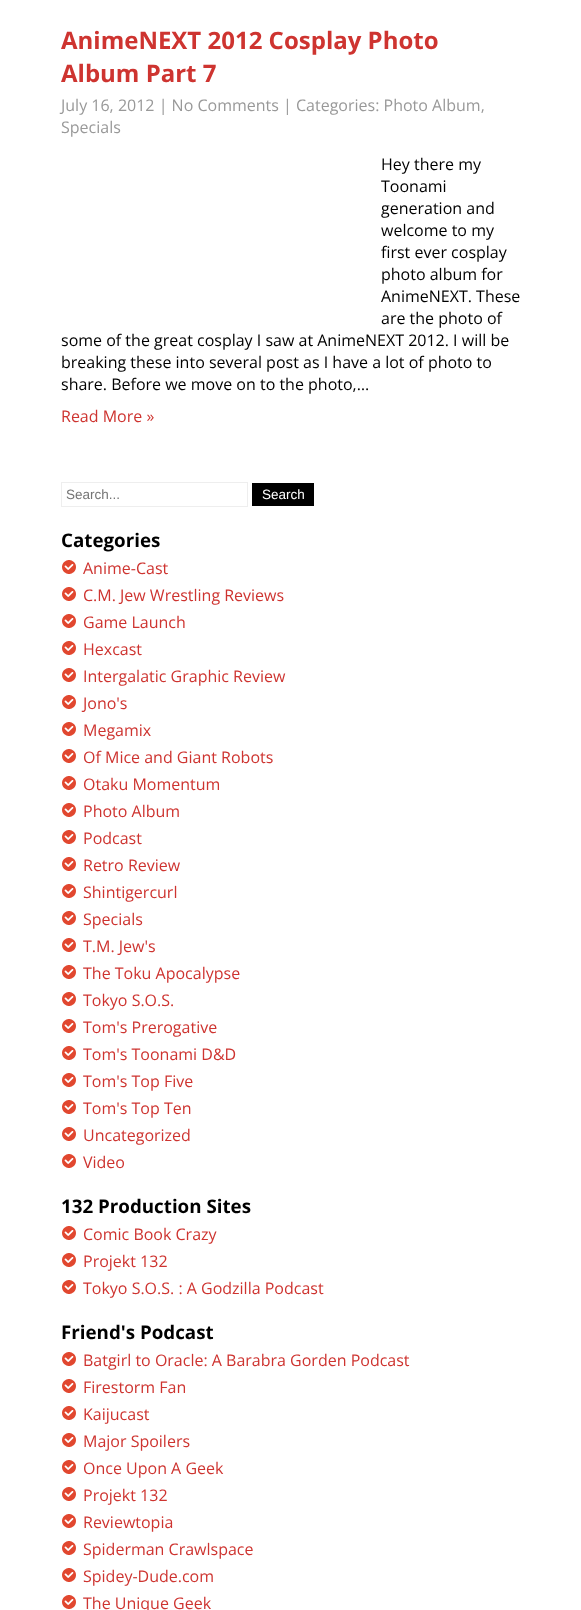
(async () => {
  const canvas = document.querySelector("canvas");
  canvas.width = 581;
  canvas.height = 1610;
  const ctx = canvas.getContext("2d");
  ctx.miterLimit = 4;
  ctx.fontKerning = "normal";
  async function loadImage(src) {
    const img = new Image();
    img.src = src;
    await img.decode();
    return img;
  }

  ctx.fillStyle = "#ffffff";
  ctx.fillRect(0, 0, 581, 1610);
  ctx.strokeStyle = "#eeeeee";
  ctx.strokeRect(61.5, 482.5, 186, 24);
  ctx.fillStyle = "#000000";
  ctx.fillRect(252, 483, 62, 23);
  ctx.drawImage(await loadImage("img/1.png"), 62, 560, 14, 14);
  ctx.drawImage(await loadImage("img/1.png"), 62, 587, 14, 14);
  ctx.drawImage(await loadImage("img/1.png"), 62, 614, 14, 14);
  ctx.drawImage(await loadImage("img/1.png"), 62, 641, 14, 14);
  ctx.drawImage(await loadImage("img/1.png"), 62, 668, 14, 14);
  ctx.drawImage(await loadImage("img/1.png"), 62, 695, 14, 14);
  ctx.drawImage(await loadImage("img/1.png"), 62, 722, 14, 14);
  ctx.drawImage(await loadImage("img/1.png"), 62, 749, 14, 14);
  ctx.drawImage(await loadImage("img/1.png"), 62, 776, 14, 14);
  ctx.drawImage(await loadImage("img/1.png"), 62, 803, 14, 14);
  ctx.drawImage(await loadImage("img/1.png"), 62, 830, 14, 14);
  ctx.drawImage(await loadImage("img/1.png"), 62, 857, 14, 14);
  ctx.drawImage(await loadImage("img/1.png"), 62, 884, 14, 14);
  ctx.drawImage(await loadImage("img/1.png"), 62, 911, 14, 14);
  ctx.drawImage(await loadImage("img/1.png"), 62, 938, 14, 14);
  ctx.drawImage(await loadImage("img/1.png"), 62, 965, 14, 14);
  ctx.drawImage(await loadImage("img/1.png"), 62, 992, 14, 14);
  ctx.drawImage(await loadImage("img/1.png"), 62, 1019, 14, 14);
  ctx.drawImage(await loadImage("img/1.png"), 62, 1046, 14, 14);
  ctx.drawImage(await loadImage("img/1.png"), 62, 1073, 14, 14);
  ctx.drawImage(await loadImage("img/1.png"), 62, 1100, 14, 14);
  ctx.drawImage(await loadImage("img/1.png"), 62, 1127, 14, 14);
  ctx.drawImage(await loadImage("img/1.png"), 62, 1154, 14, 14);
  ctx.drawImage(await loadImage("img/1.png"), 62, 1226, 14, 14);
  ctx.drawImage(await loadImage("img/1.png"), 62, 1253, 14, 14);
  ctx.drawImage(await loadImage("img/1.png"), 62, 1280, 14, 14);
  ctx.drawImage(await loadImage("img/1.png"), 62, 1352, 14, 14);
  ctx.drawImage(await loadImage("img/1.png"), 62, 1379, 14, 14);
  ctx.drawImage(await loadImage("img/1.png"), 62, 1406, 14, 14);
  ctx.drawImage(await loadImage("img/1.png"), 62, 1433, 14, 14);
  ctx.drawImage(await loadImage("img/1.png"), 62, 1460, 14, 14);
  ctx.drawImage(await loadImage("img/1.png"), 62, 1487, 14, 14);
  ctx.drawImage(await loadImage("img/1.png"), 62, 1514, 14, 14);
  ctx.drawImage(await loadImage("img/1.png"), 62, 1541, 14, 14);
  ctx.drawImage(await loadImage("img/1.png"), 62, 1568, 14, 14);
  ctx.drawImage(await loadImage("img/1.png"), 62, 1595, 14, 14);
  ctx.font = "bold 24px Open Sans";
  ctx.fillStyle = "#ce3430";
  ctx.fillText("AnimeNEXT 2012 Cosplay Photo", 61, 49);
  ctx.fillText("Album Part 7", 61, 82);
  ctx.font = "16px Open Sans";
  ctx.fillStyle = "#999999";
  ctx.fillText("July 16, 2012 | No Comments | Categories: Photo Album,", 61, 111);
  ctx.fillText("Specials", 61, 133);
  ctx.fillStyle = "#000000";
  for (const [text, x, y] of [
    ["Hey there my", 381, 170],
    ["Toonami", 381, 192],
    ["generation and", 381, 214],
    ["welcome to my", 381, 236],
    ["first ever cosplay", 381, 258],
    ["photo album for", 381, 280],
    ["AnimeNEXT. These", 381, 302],
    ["are the photo of", 381, 324],
    ["some of the great cosplay I saw at AnimeNEXT 2012. I will be", 61, 346],
    ["breaking these into several post as I have a lot of photo to", 61, 368],
    ["share. Before we move on to the photo,…", 61, 390],
  ]) {
    ctx.fillText(text, x, y);
  }
  ctx.fillStyle = "#ce3430";
  ctx.fillText("Read More »", 61, 422);
  ctx.font = "13.5px Liberation Sans";
  ctx.fillStyle = "#757575";
  ctx.fillText("Search...", 66, 499);
  ctx.fillStyle = "#ffffff";
  ctx.fillText("Search", 262, 499);
  ctx.font = "bold 18.75px Open Sans";
  ctx.fillStyle = "#000000";
  ctx.fillText("Categories", 61, 547);
  ctx.font = "16px Open Sans";
  ctx.fillStyle = "#ce3430";
  for (const [text, x, y] of [
    ["Anime-Cast", 83, 574],
    ["C.M. Jew Wrestling Reviews", 83, 601],
    ["Game Launch", 83, 628],
    ["Hexcast", 83, 655],
    ["Intergalatic Graphic Review", 83, 682],
    ["Jono's", 83, 709],
    ["Megamix", 83, 736],
    ["Of Mice and Giant Robots", 83, 763],
    ["Otaku Momentum", 83, 790],
    ["Photo Album", 83, 817],
    ["Podcast", 83, 844],
    ["Retro Review", 83, 871],
    ["Shintigercurl", 83, 898],
    ["Specials", 83, 925],
    ["T.M. Jew's", 83, 952],
    ["The Toku Apocalypse", 83, 979],
    ["Tokyo S.O.S.", 83, 1006],
    ["Tom's Prerogative", 83, 1033],
    ["Tom's Toonami D&D", 83, 1060],
    ["Tom's Top Five", 83, 1087],
    ["Tom's Top Ten", 83, 1114],
    ["Uncategorized", 83, 1141],
    ["Video", 83, 1168],
  ]) {
    ctx.fillText(text, x, y);
  }
  ctx.font = "bold 18.75px Open Sans";
  ctx.fillStyle = "#000000";
  ctx.fillText("132 Production Sites", 61, 1213);
  ctx.font = "16px Open Sans";
  ctx.fillStyle = "#ce3430";
  for (const [text, x, y] of [
    ["Comic Book Crazy", 83, 1240],
    ["Projekt 132", 83, 1267],
    ["Tokyo S.O.S. : A Godzilla Podcast", 83, 1294],
  ]) {
    ctx.fillText(text, x, y);
  }
  ctx.font = "bold 18.75px Open Sans";
  ctx.fillStyle = "#000000";
  ctx.fillText("Friend's Podcast", 61, 1339);
  ctx.font = "16px Open Sans";
  ctx.fillStyle = "#ce3430";
  for (const [text, x, y] of [
    ["Batgirl to Oracle: A Barabra Gorden Podcast", 83, 1366],
    ["Firestorm Fan", 83, 1393],
    ["Kaijucast", 83, 1420],
    ["Major Spoilers", 83, 1447],
    ["Once Upon A Geek", 83, 1474],
    ["Projekt 132", 83, 1501],
    ["Reviewtopia", 83, 1528],
    ["Spiderman Crawlspace", 83, 1555],
    ["Spidey-Dude.com", 83, 1582],
    ["The Unique Geek", 83, 1609],
  ]) {
    ctx.fillText(text, x, y);
  }
})();
